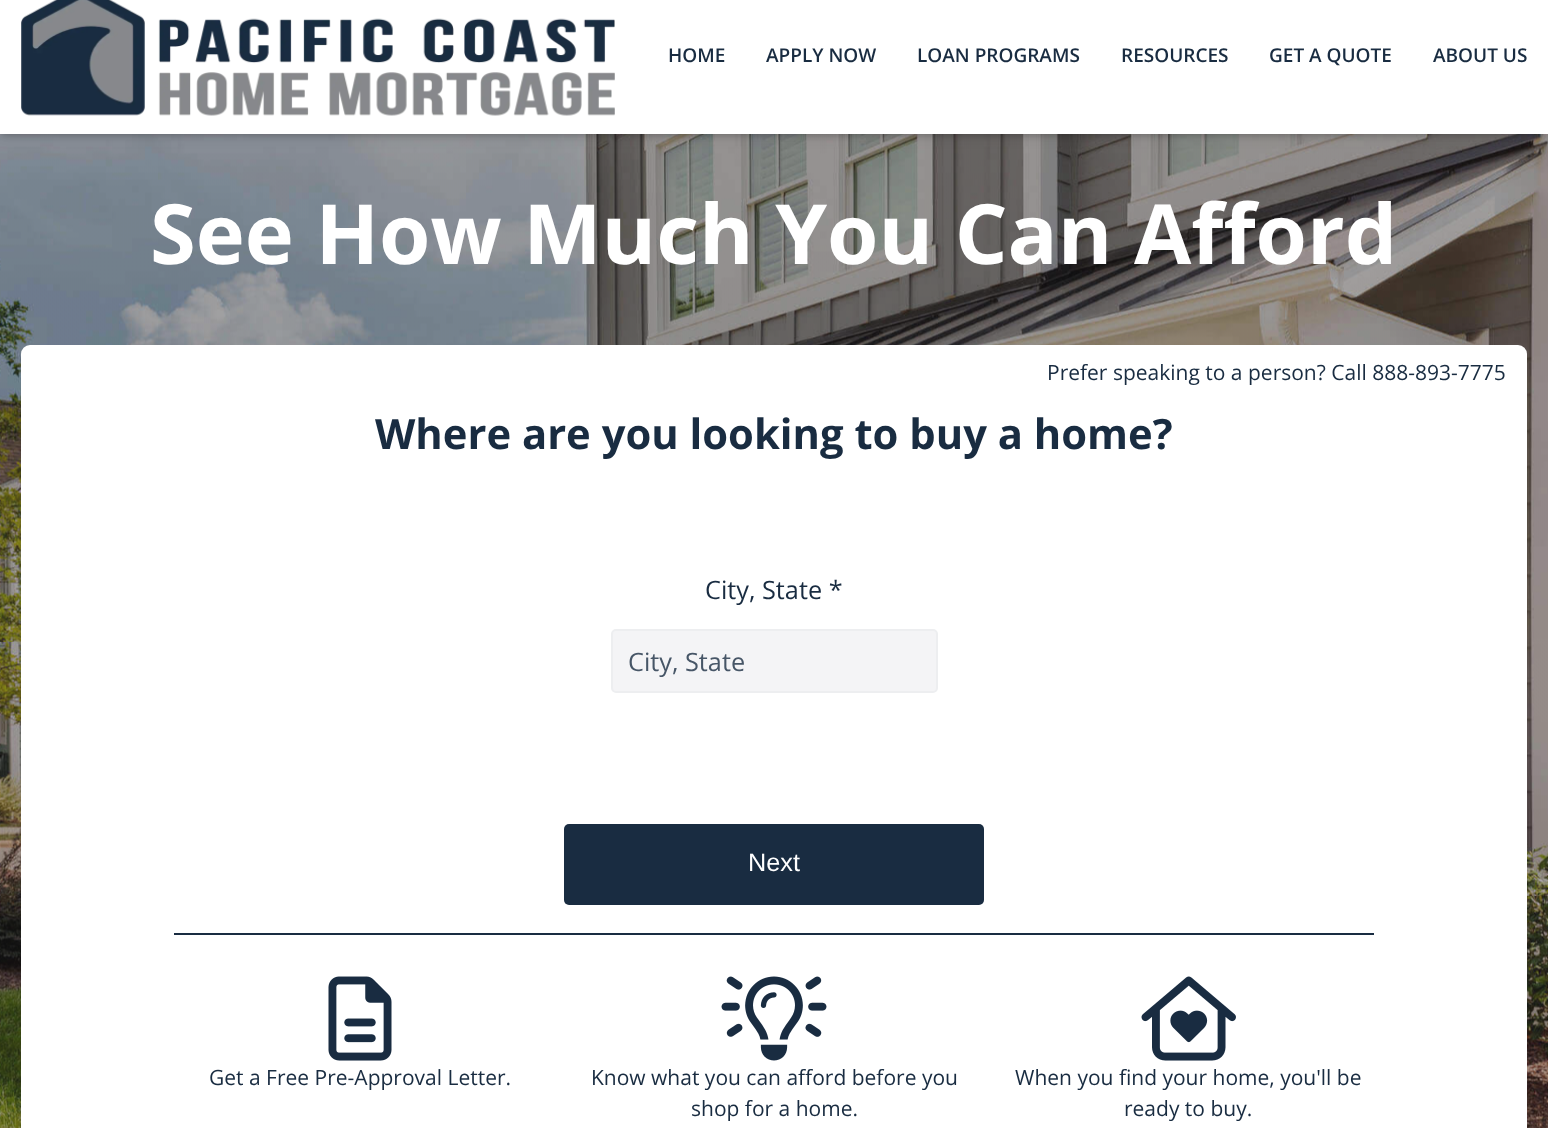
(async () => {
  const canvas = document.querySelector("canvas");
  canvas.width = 1548;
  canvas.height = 1128;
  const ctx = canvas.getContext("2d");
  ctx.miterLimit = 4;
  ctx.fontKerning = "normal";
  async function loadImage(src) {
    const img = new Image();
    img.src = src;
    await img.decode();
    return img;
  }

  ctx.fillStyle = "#ffffff";
  ctx.fillRect(0, 0, 1548, 1128);
  ctx.drawImage(await loadImage("img/2.png"), 0, 134, 1548, 994);
  ctx.fillStyle = "rgba(0, 0, 0, 0.1)";
  ctx.filter = "blur(7.5px)";
  ctx.beginPath();
  ctx.rect(0, -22, 1548, 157);
  ctx.fill();
  ctx.filter = "none";
  ctx.fillStyle = "rgba(0, 0, 0, 0.2)";
  ctx.filter = "blur(3px)";
  ctx.beginPath();
  ctx.rect(2, -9, 1545, 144);
  ctx.fill();
  ctx.filter = "none";
  ctx.fillStyle = "#ffffff";
  ctx.fillRect(0, 0, 1548, 134);
  ctx.drawImage(await loadImage("img/1.png"), 21, 0, 594, 116);
  ctx.beginPath();
  ctx.roundRect(21, 345, 1506, 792, 9);
  ctx.fill();
  ctx.fillStyle = "#f4f4f6";
  ctx.beginPath();
  ctx.roundRect(612, 630, 325, 62, 4);
  ctx.fill();
  ctx.strokeStyle = "#edeef0";
  ctx.lineWidth = 2;
  ctx.stroke();
  ctx.fillStyle = "#192c41";
  ctx.beginPath();
  ctx.roundRect(564, 824, 420, 81, 5);
  ctx.fill();
  ctx.fillRect(174, 933, 1200, 2);
  ctx.drawImage(await loadImage("img/3.png"), 328, 976, 64, 85);
  ctx.drawImage(await loadImage("img/4.png"), 721, 976, 106, 85);
  ctx.drawImage(await loadImage("img/5.png"), 1141, 976, 95, 85);
  ctx.font = "600 19px Open Sans";
  for (const [text, x, y] of [
    ["HOME", 668, 62],
    ["APPLY NOW", 766, 62],
    ["LOAN PROGRAMS", 917, 62],
    ["RESOURCES", 1121, 62],
    ["GET A QUOTE", 1269, 62],
    ["ABOUT US", 1433, 62],
  ]) {
    ctx.fillText(text, x, y);
  }
  ctx.font = "bold 83.1px Open Sans";
  ctx.fillStyle = "#ffffff";
  ctx.fillText("See How Much You Can Afford", 150, 264);
  ctx.font = "21px Open Sans";
  ctx.fillStyle = "#192c41";
  ctx.fillText("Prefer speaking to a person? Call 888-893-7775", 1047, 380);
  ctx.font = "bold 41.75px Open Sans";
  ctx.fillText("Where are you looking to buy a home?", 375, 449);
  ctx.font = "25.25px Open Sans";
  ctx.fillText("City, State *", 705, 599);
  ctx.fillStyle = "#475667";
  ctx.fillText("City, State", 628, 671);
  ctx.font = "25.25px Liberation Sans";
  ctx.fillStyle = "#ffffff";
  ctx.fillText("Next", 748, 871);
  ctx.font = "21px Open Sans";
  ctx.fillStyle = "#192c41";
  for (const [text, x, y] of [
    ["Get a Free Pre-Approval Letter.", 209, 1085],
    ["Know what you can afford before you", 591, 1085],
    ["shop for a home.", 691, 1116],
    ["When you find your home, you'll be", 1015, 1085],
    ["ready to buy.", 1124, 1116],
  ]) {
    ctx.fillText(text, x, y);
  }
})();
